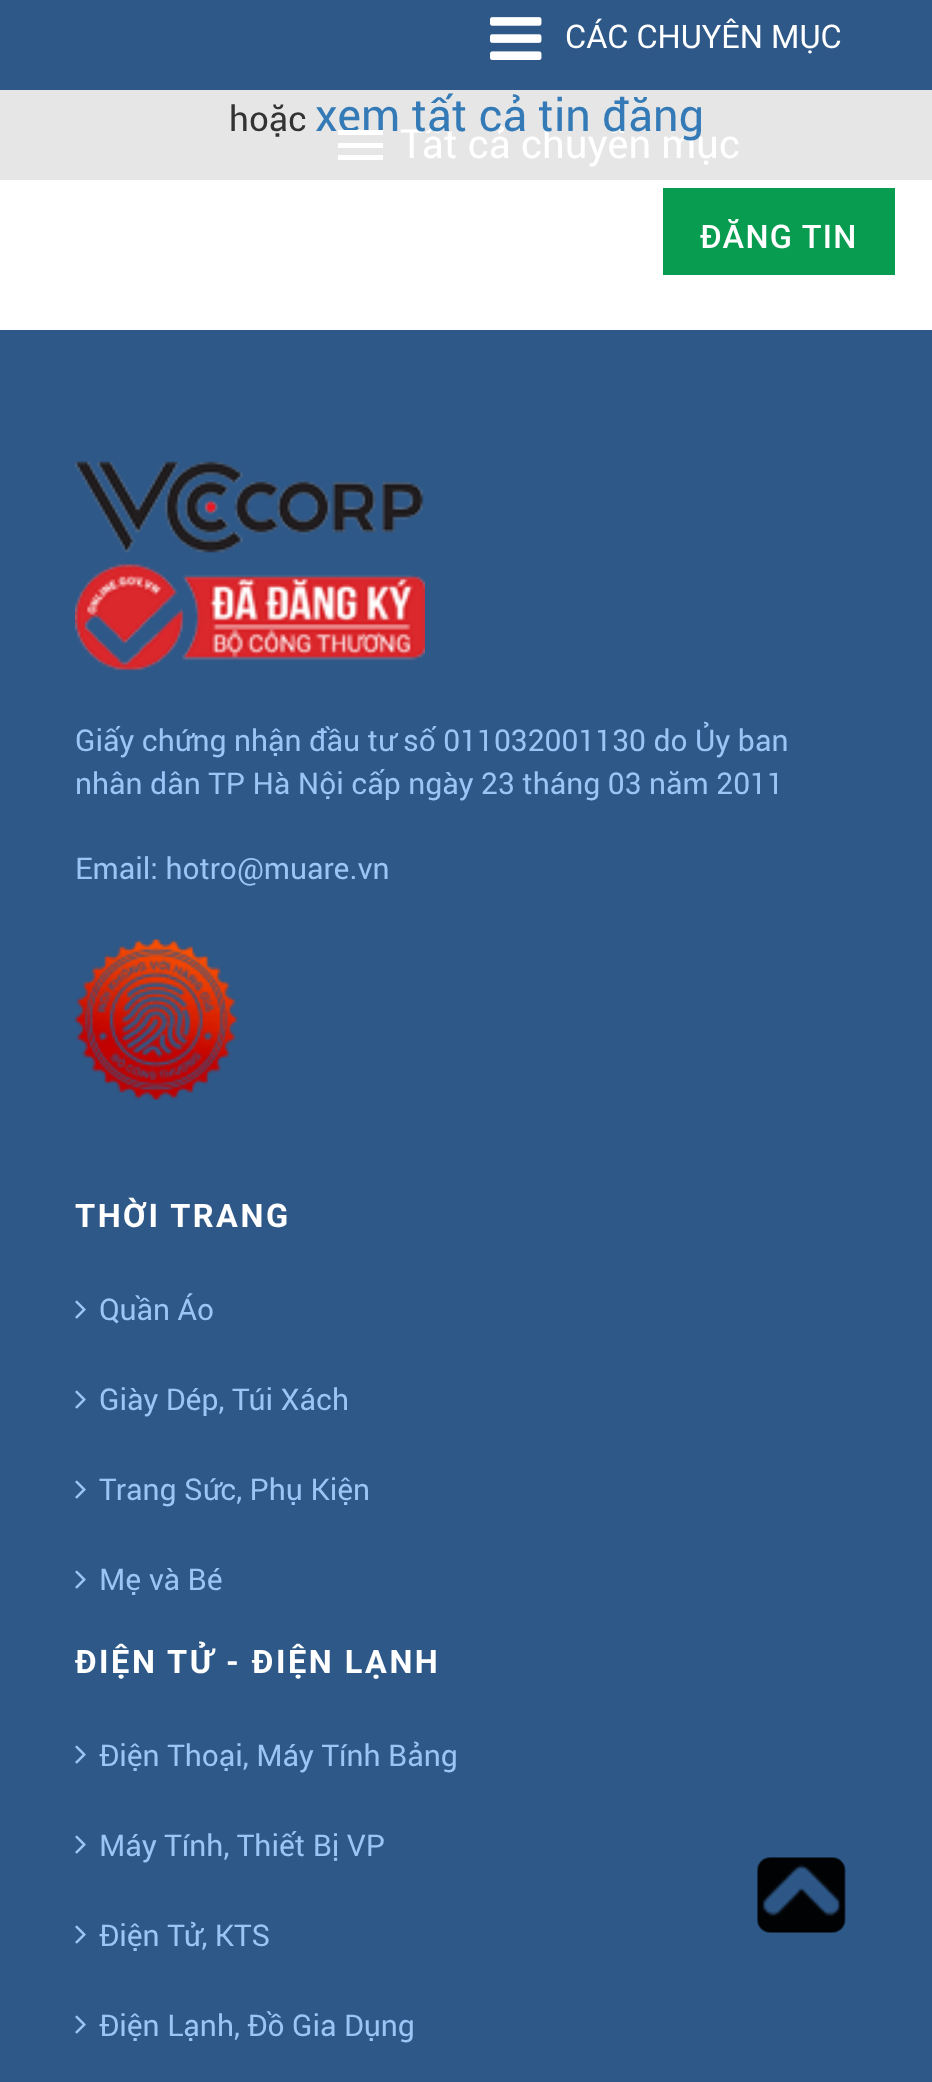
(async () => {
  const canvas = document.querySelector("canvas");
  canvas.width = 932;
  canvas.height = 2082;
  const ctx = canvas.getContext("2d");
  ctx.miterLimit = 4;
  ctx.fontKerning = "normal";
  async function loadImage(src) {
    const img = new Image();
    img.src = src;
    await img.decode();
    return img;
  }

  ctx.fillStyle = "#2e5888";
  ctx.fillRect(0, 0, 932, 2082);
  ctx.drawImage(await loadImage("img/1.png"), 490, 17, 52, 43);
  for (const [x, y, w, h, color] of [
    [0, 90, 932, 90, "#e6e6e6"],
    [338, 143, 45, 5, "#ffffff"],
    [338, 155, 45, 5, "#ffffff"],
    [0, 180, 932, 150, "#ffffff"],
    [663, 188, 232, 87, "#079c50"],
  ]) {
    ctx.fillStyle = color;
    ctx.fillRect(x, y, w, h);
  }
  ctx.drawImage(await loadImage("img/2.png"), 75, 461, 349, 92);
  ctx.drawImage(await loadImage("img/3.png"), 75, 563, 350, 108);
  ctx.drawImage(await loadImage("img/4.png"), 75, 939, 163, 161);
  ctx.drawImage(await loadImage("img/5.png"), 75, 1300, 11, 19);
  ctx.drawImage(await loadImage("img/5.png"), 75, 1390, 11, 19);
  ctx.drawImage(await loadImage("img/5.png"), 75, 1480, 11, 19);
  ctx.drawImage(await loadImage("img/5.png"), 75, 1570, 11, 19);
  ctx.drawImage(await loadImage("img/5.png"), 75, 1745, 11, 19);
  ctx.drawImage(await loadImage("img/5.png"), 75, 1835, 11, 19);
  ctx.drawImage(await loadImage("img/5.png"), 75, 1925, 11, 19);
  ctx.drawImage(await loadImage("img/5.png"), 75, 2015, 11, 19);
  ctx.drawImage(await loadImage("img/6.png"), 757, 1857, 89, 76);
  ctx.font = "32.5px 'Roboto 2'";
  ctx.fillStyle = "#ffffff";
  ctx.fillText("CÁC CHUYÊN MỤC", 565, 48);
  ctx.font = "40px Roboto";
  ctx.fillText("Tất cả chuyên mục", 400, 158);
  ctx.letterSpacing = "1.25px";
  ctx.font = "500 32.5px Roboto";
  ctx.fillText("ĐĂNG TIN", 700, 248);
  ctx.letterSpacing = "0px";
  ctx.font = "35px Roboto";
  ctx.fillStyle = "#333333";
  ctx.fillText("hoặc", 229, 131);
  ctx.font = "45px Roboto";
  ctx.fillStyle = "#337ab7";
  ctx.fillText("xem tất cả tin đăng", 315, 131);
  ctx.fillStyle = "#ffffff";
  ctx.fillRect(338, 130, 45, 5);
  ctx.font = "30px Roboto";
  ctx.fillStyle = "#9ac6f5";
  for (const [text, x, y] of [
    ["Giấy chứng nhận đầu tư số 011032001130 do Ủy ban", 75, 751],
    ["nhân dân TP Hà Nội cấp ngày 23 tháng 03 năm 2011", 75, 794],
    ["Email: hotro@muare.vn", 75, 879],
  ]) {
    ctx.fillText(text, x, y);
  }
  ctx.letterSpacing = "2.5px";
  ctx.font = "bold 32.5px Roboto";
  ctx.fillStyle = "#ffffff";
  ctx.fillText("THỜI TRANG", 75, 1227);
  ctx.letterSpacing = "0px";
  ctx.font = "30px Roboto";
  ctx.fillStyle = "#9ac6f5";
  for (const [text, x, y] of [
    ["Quần Áo", 99, 1320],
    ["Giày Dép, Túi Xách", 99, 1410],
    ["Trang Sức, Phụ Kiện", 99, 1500],
    ["Mẹ và Bé", 99, 1590],
  ]) {
    ctx.fillText(text, x, y);
  }
  ctx.letterSpacing = "2.5px";
  ctx.font = "bold 32.5px Roboto";
  ctx.fillStyle = "#ffffff";
  ctx.fillText("ĐIỆN TỬ - ĐIỆN LẠNH", 75, 1673);
  ctx.letterSpacing = "0px";
  ctx.font = "30px Roboto";
  ctx.fillStyle = "#9ac6f5";
  for (const [text, x, y] of [
    ["Điện Thoại, Máy Tính Bảng", 99, 1766],
    ["Máy Tính, Thiết Bị VP", 99, 1856],
    ["Điện Tử, KTS", 99, 1946],
    ["Điện Lạnh, Đồ Gia Dụng", 99, 2036],
  ]) {
    ctx.fillText(text, x, y);
  }
})();
